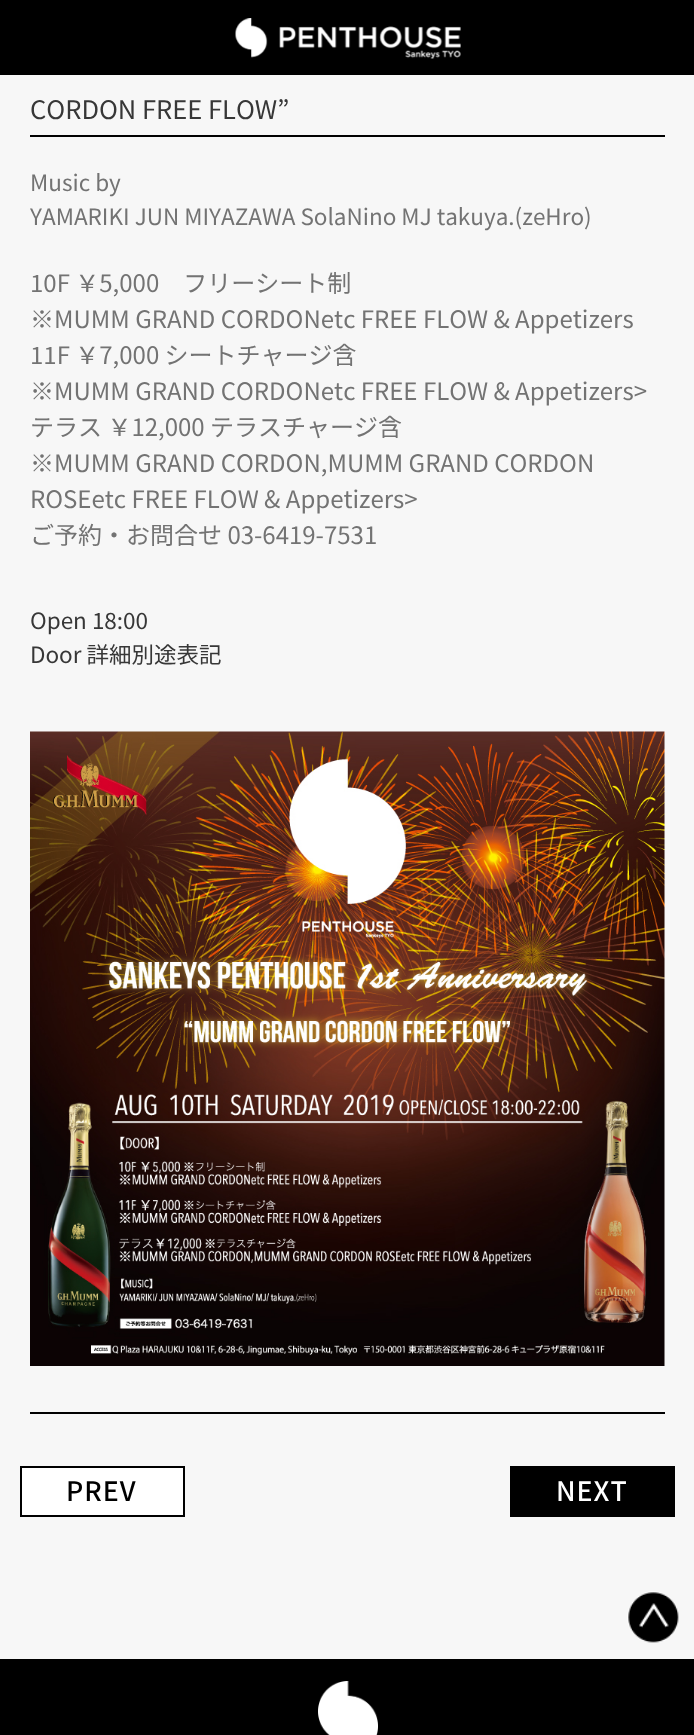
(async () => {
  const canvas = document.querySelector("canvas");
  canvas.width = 694;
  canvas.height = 1735;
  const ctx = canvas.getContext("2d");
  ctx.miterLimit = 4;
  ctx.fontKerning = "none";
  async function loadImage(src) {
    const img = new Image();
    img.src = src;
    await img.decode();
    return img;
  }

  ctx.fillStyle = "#000000";
  ctx.fillRect(0, 0, 694, 1735);
  ctx.drawImage(await loadImage("img/1.png"), 235, 18, 226, 41);
  for (const [x, y, w, h, color] of [
    [0, 75, 694, 1584, "#f7f7f7"],
    [30, 1412, 635, 2, "#000000"],
    [30, 135, 635, 2, "#000000"],
  ]) {
    ctx.fillStyle = color;
    ctx.fillRect(x, y, w, h);
  }
  ctx.drawImage(await loadImage("img/2.png"), 30, 731, 635, 635);
  ctx.fillStyle = "#ffffff";
  ctx.beginPath();
  ctx.rect(21, 1467, 163, 49);
  ctx.fill();
  ctx.strokeStyle = "#000000";
  ctx.lineWidth = 2;
  ctx.stroke();
  ctx.fillStyle = "#000000";
  ctx.fillRect(510, 1466, 165, 51);
  ctx.drawImage(await loadImage("img/3.png"), 627, 1591, 52, 52);
  ctx.drawImage(await loadImage("img/4.png"), 318, 1681, 60, 54);
  ctx.font = "100 25.5px Noto Sans JP";
  ctx.fillStyle = "#373737";
  ctx.fillText("CORDON FREE FLOW”", 30, 119);
  ctx.font = "100 22.5px Noto Sans JP";
  ctx.fillStyle = "#737373";
  ctx.fillText("Music by", 30, 191);
  ctx.fillText("YAMARIKI JUN MIYAZAWA SolaNino MJ takuya.(zeHro)", 30, 225);
  ctx.font = "100 24px Noto Sans JP";
  for (const [text, x, y] of [
    ["10F ￥5,000　フリーシート制", 30, 292],
    ["※MUMM GRAND CORDONetc FREE FLOW & Appetizers", 30, 328],
    ["11F ￥7,000 シートチャージ含", 30, 364],
    ["※MUMM GRAND CORDONetc FREE FLOW & Appetizers>", 30, 400],
    ["テラス ￥12,000 テラスチャージ含", 30, 436],
    ["※MUMM GRAND CORDON,MUMM GRAND CORDON", 30, 472],
    ["ROSEetc FREE FLOW & Appetizers>", 30, 508],
    ["ご予約・お問合せ 03-6419-7531", 30, 544],
  ]) {
    ctx.fillText(text, x, y);
  }
  ctx.font = "100 22.5px Noto Sans JP";
  ctx.fillStyle = "#373737";
  ctx.fillText("Open 18:00", 30, 629);
  ctx.fillText("Door 詳細別途表記", 30, 663);
  ctx.letterSpacing = "1px";
  ctx.font = "600 30px Assistant";
  ctx.fillStyle = "#000000";
  ctx.fillText("PREV", 66, 1501);
  ctx.fillStyle = "#ffffff";
  ctx.fillText("NEXT", 556, 1501);
})();
